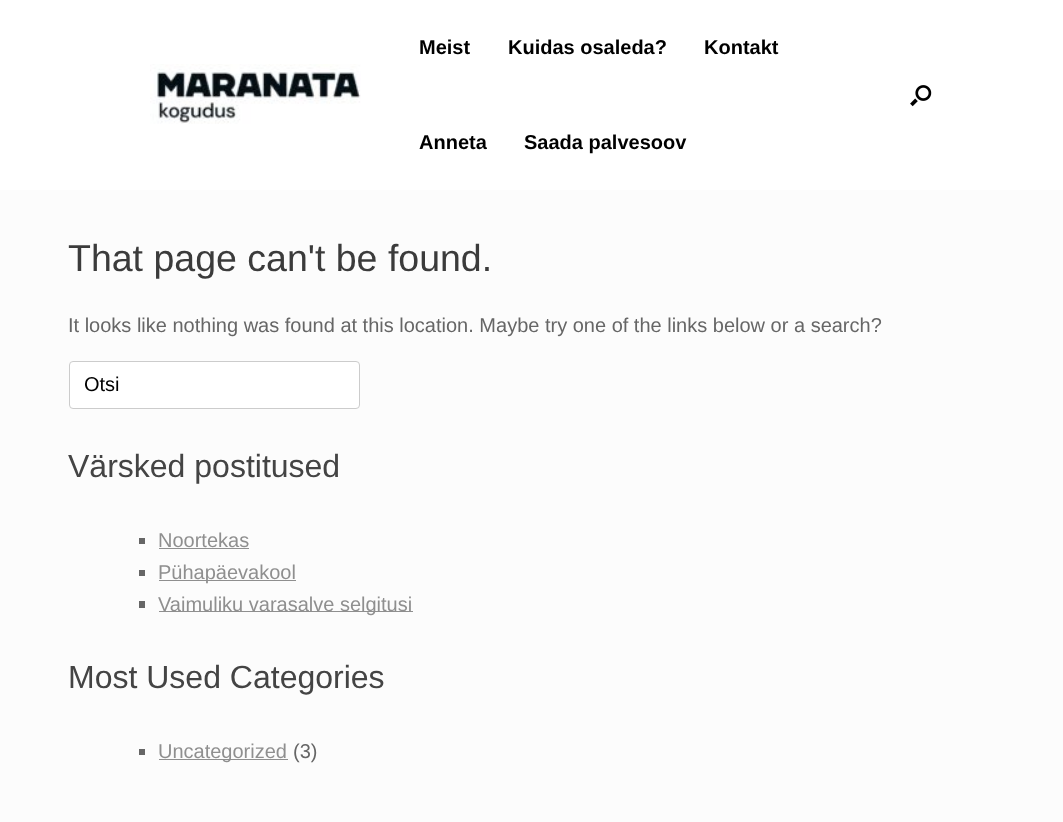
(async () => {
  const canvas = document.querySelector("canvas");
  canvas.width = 1063;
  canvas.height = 822;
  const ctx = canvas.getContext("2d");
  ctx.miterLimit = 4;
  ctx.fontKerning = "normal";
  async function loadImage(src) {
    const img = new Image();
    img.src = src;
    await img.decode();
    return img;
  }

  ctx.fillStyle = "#fcfcfc";
  ctx.fillRect(0, 0, 1063, 822);
  ctx.fillStyle = "#ffffff";
  ctx.fillRect(0, 0, 1063, 190);
  ctx.drawImage(await loadImage("img/1.png"), 150, 64, 211, 60);
  ctx.drawImage(await loadImage("img/2.png"), 910, 85, 22, 22);
  ctx.beginPath();
  ctx.roundRect(69.5, 361.5, 290, 47, 3.5);
  ctx.fill();
  ctx.strokeStyle = "#cccccc";
  ctx.stroke();
  for (const [x, y, w, h, color] of [
    [139, 538, 6, 6, "#666666"],
    [159, 548, 90, 1, "#8f8f8f"],
    [139, 570, 6, 6, "#666666"],
    [159, 580, 137, 1, "#8f8f8f"],
    [139, 601, 6, 7, "#666666"],
    [159, 611, 254, 1, "#8f8f8f"],
    [139, 749, 6, 6, "#666666"],
    [159, 759, 129, 1, "#8f8f8f"],
  ]) {
    ctx.fillStyle = color;
    ctx.fillRect(x, y, w, h);
  }
  ctx.font = "bold 20px Liberation Sans";
  ctx.fillStyle = "#000000";
  for (const [text, x, y] of [
    ["Meist", 419, 54],
    ["Kuidas osaleda?", 508, 54],
    ["Kontakt", 704, 54],
    ["Anneta", 419, 149],
    ["Saada palvesoov", 524, 149],
  ]) {
    ctx.fillText(text, x, y);
  }
  ctx.font = "37.5px Liberation Sans";
  ctx.fillStyle = "#3b3b3b";
  ctx.fillText("That page can't be found.", 68, 271);
  ctx.font = "20px Liberation Sans";
  ctx.fillStyle = "#666666";
  ctx.fillText("It looks like nothing was found at this location. Maybe try one of the links below or a search?", 68, 332);
  ctx.fillStyle = "#000000";
  ctx.fillText("Otsi", 84, 391);
  ctx.font = "32px Liberation Sans";
  ctx.fillStyle = "#444444";
  ctx.fillText("Värsked postitused", 68, 477);
  ctx.font = "20px Liberation Sans";
  ctx.fillStyle = "#8f8f8f";
  for (const [text, x, y] of [
    ["Noortekas", 158, 547],
    ["Pühapäevakool", 158, 579],
    ["Vaimuliku varasalve selgitusi", 158, 611],
  ]) {
    ctx.fillText(text, x, y);
  }
  ctx.font = "32px Liberation Sans";
  ctx.fillStyle = "#444444";
  ctx.fillText("Most Used Categories", 68, 688);
  ctx.font = "20px Liberation Sans";
  ctx.fillStyle = "#8f8f8f";
  ctx.fillText("Uncategorized", 158, 758);
  ctx.fillStyle = "#666666";
  ctx.fillText("(3)", 293, 758);
})();
